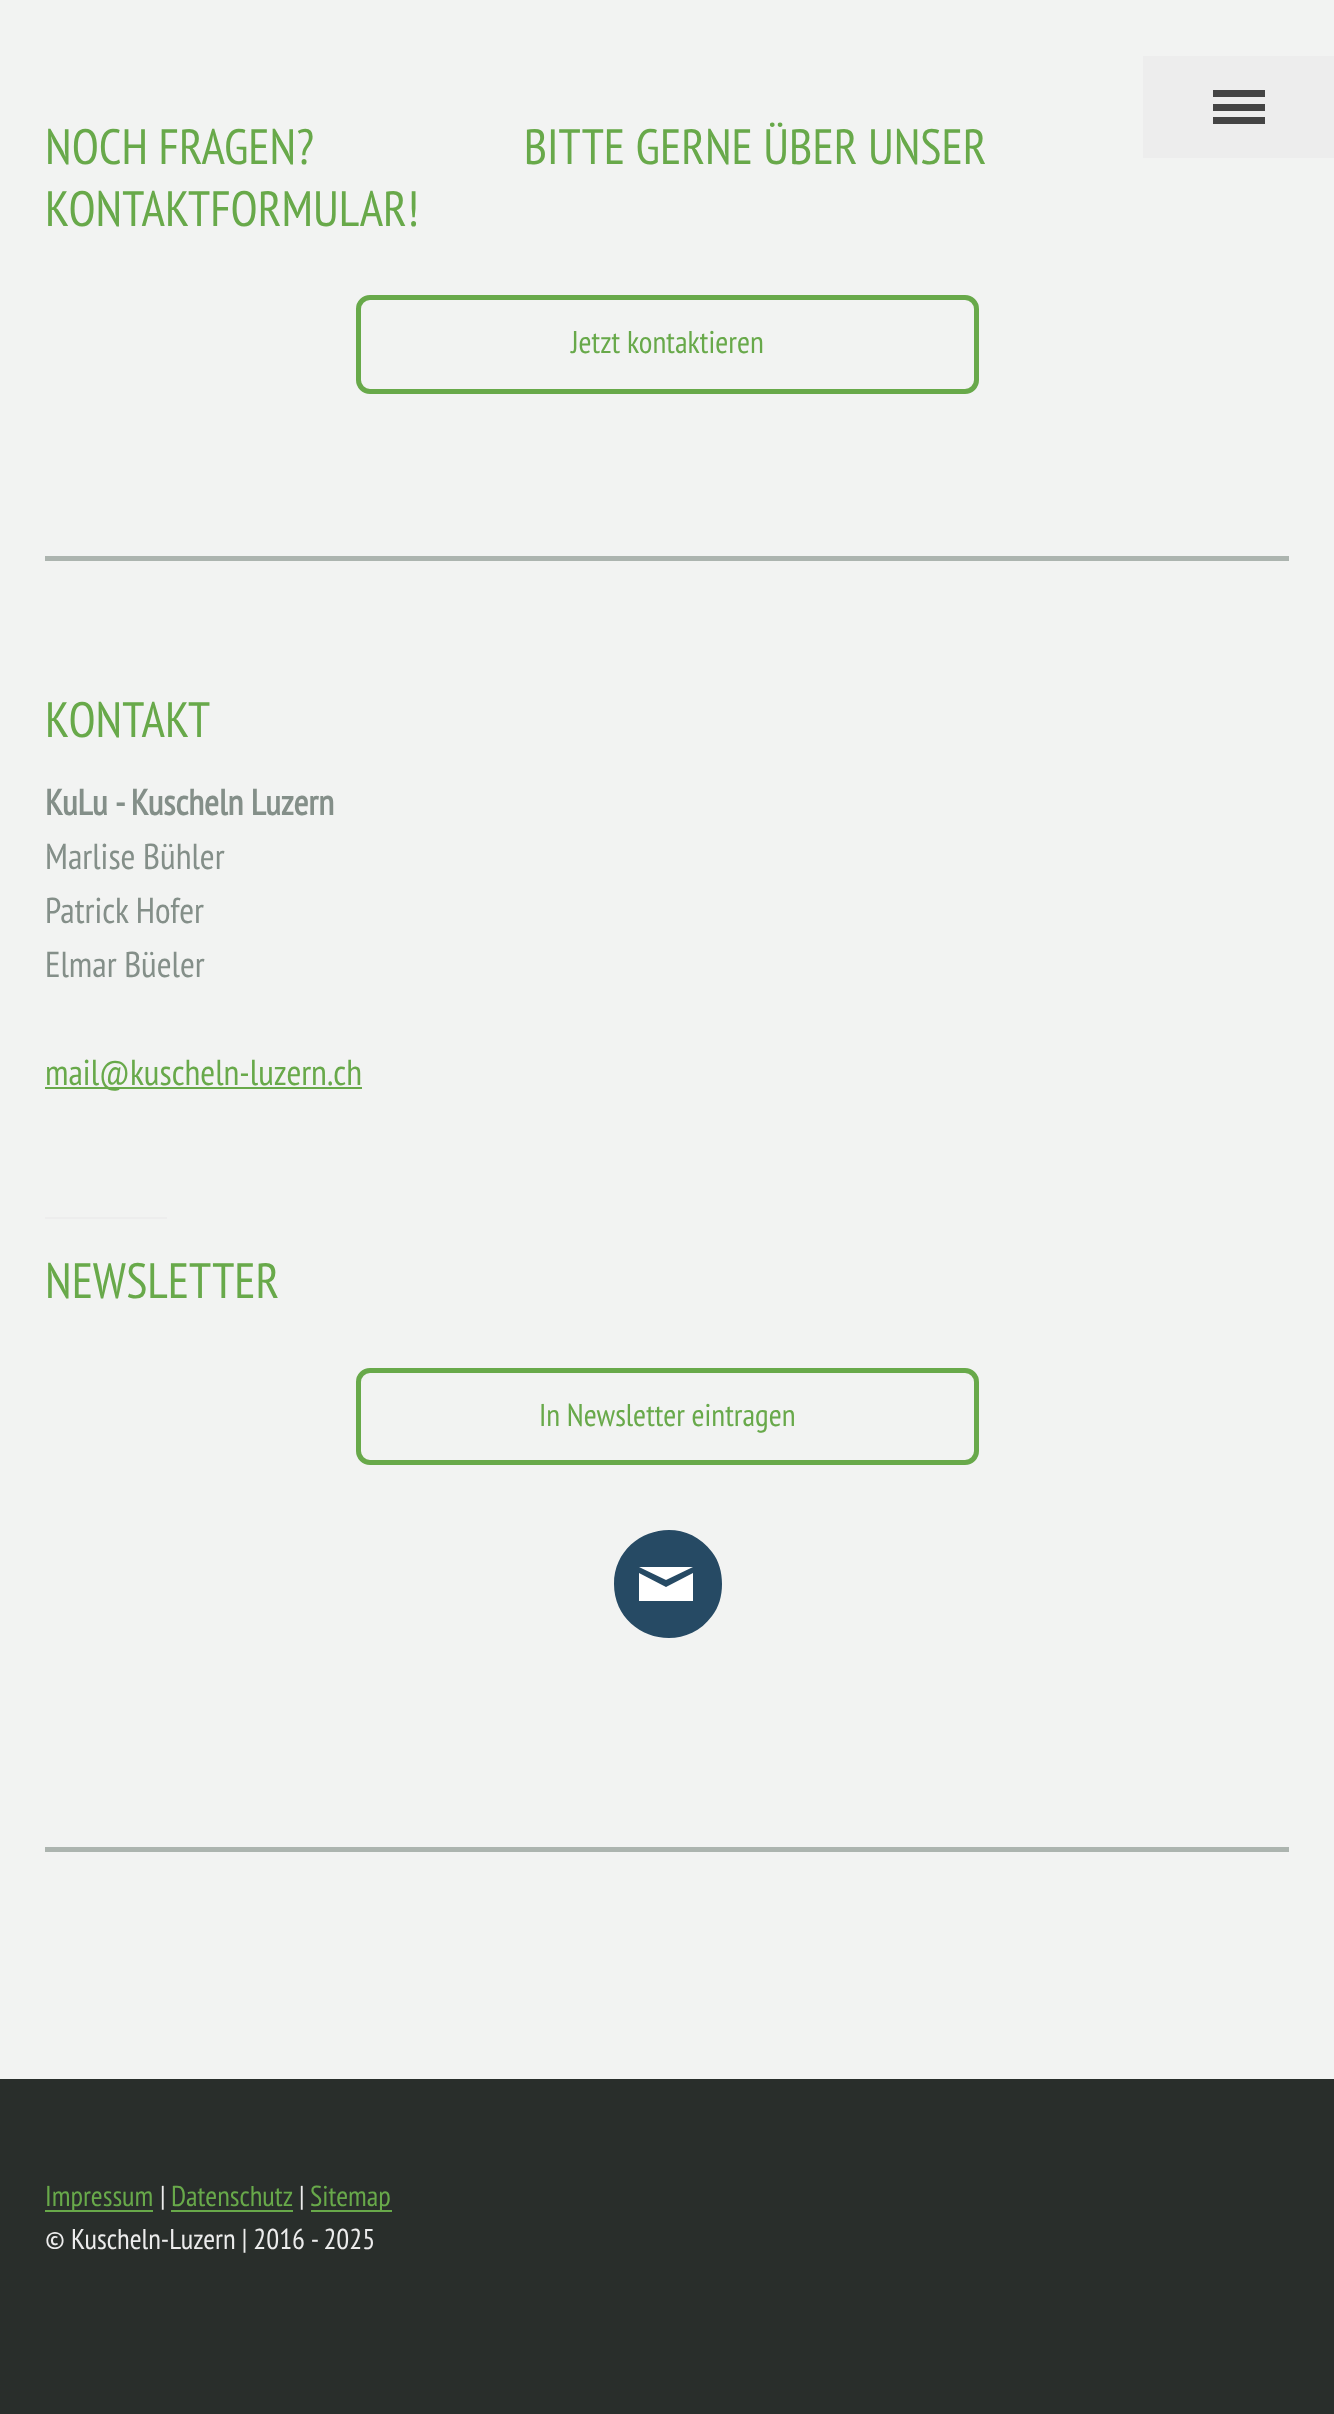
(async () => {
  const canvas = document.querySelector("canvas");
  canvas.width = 1334;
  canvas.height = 2414;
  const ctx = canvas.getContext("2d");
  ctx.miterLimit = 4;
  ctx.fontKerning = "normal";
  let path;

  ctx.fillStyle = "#f2f3f2";
  ctx.fillRect(0, 0, 1334, 2414);
  for (const [x, y, w, h, color] of [
    [1143, 56, 191, 102, "#ededed"],
    [1213, 104, 52, 7, "#444444"],
    [1213, 90, 52, 7, "#444444"],
    [1213, 117, 52, 7, "#444444"],
  ]) {
    ctx.fillStyle = color;
    ctx.fillRect(x, y, w, h);
  }
  ctx.beginPath();
  ctx.roundRect(358.5, 297.5, 618, 94, 11.5);
  ctx.strokeStyle = "#68a94a";
  ctx.lineWidth = 5;
  ctx.stroke();
  for (const [x, y, w, h, color] of [
    [45, 556, 1244, 5, "#acb4af"],
    [45, 1087, 317, 2, "#68a94a"],
    [45, 1217, 122, 2, "#ededed"],
  ]) {
    ctx.fillStyle = color;
    ctx.fillRect(x, y, w, h);
  }
  ctx.beginPath();
  ctx.roundRect(358.5, 1370.5, 618, 92, 11.5);
  ctx.stroke();
  ctx.fillStyle = "#264a64";
  path = new Path2D("M614 1584C614 1636 681 1658 712 1616C719 1607 722 1596 722 1584C722 1572 719 1561 712 1552C681 1510 614 1532 614 1584Z");
  ctx.fill(path);
  ctx.fillStyle = "#ffffff";
  path = new Path2D("M693 1601H639V1573L666 1587L693 1573ZM693 1567H639L666 1580Z");
  ctx.fill(path);
  for (const [x, y, w, h, color] of [
    [45, 1847, 1244, 5, "#acb4af"],
    [0, 2079, 1334, 335, "#292e2b"],
    [45, 2210, 108, 2, "#68a94a"],
    [171, 2210, 122, 2, "#68a94a"],
    [311, 2210, 81, 2, "#68a94a"],
  ]) {
    ctx.fillStyle = color;
    ctx.fillRect(x, y, w, h);
  }
  ctx.font = "49.5px PT Sans Narrow";
  ctx.fillText("NOCH FRAGEN?                    BITTE GERNE ÜBER UNSER", 45, 164);
  ctx.fillText("KONTAKTFORMULAR!", 45, 226);
  ctx.font = "31.5px PT Sans Narrow";
  ctx.fillText("Jetzt kontaktieren", 571, 353);
  ctx.font = "49.5px PT Sans Narrow";
  ctx.fillText("KONTAKT", 45, 737);
  ctx.font = "bold 36px PT Sans Narrow";
  ctx.fillStyle = "#848f89";
  ctx.fillText("KuLu - Kuscheln Luzern", 45, 815);
  ctx.font = "36px PT Sans Narrow";
  for (const [text, x, y] of [
    ["Marlise Bühler", 45, 869],
    ["Patrick Hofer", 45, 923],
    ["Elmar Büeler", 45, 977],
  ]) {
    ctx.fillText(text, x, y);
  }
  ctx.fillStyle = "#68a94a";
  ctx.fillText("mail@kuscheln-luzern.ch", 45, 1085);
  ctx.font = "49.5px PT Sans Narrow";
  ctx.fillText("NEWSLETTER", 45, 1298);
  ctx.font = "31.5px PT Sans Narrow";
  ctx.fillText("In Newsletter eintragen", 539, 1426);
  ctx.font = "28.75px PT Sans Narrow";
  ctx.fillText("Impressum", 45, 2206);
  ctx.fillStyle = "#ececec";
  ctx.fillText("|", 160, 2206);
  ctx.fillStyle = "#68a94a";
  ctx.fillText("Datenschutz", 171, 2206);
  ctx.fillStyle = "#ececec";
  ctx.fillText("|", 299, 2206);
  ctx.fillStyle = "#68a94a";
  ctx.fillText("Sitemap", 310, 2206);
  ctx.fillStyle = "#ececec";
  ctx.fillText("© Kuscheln-Luzern | 2016 - 2025", 45, 2249);
})();
